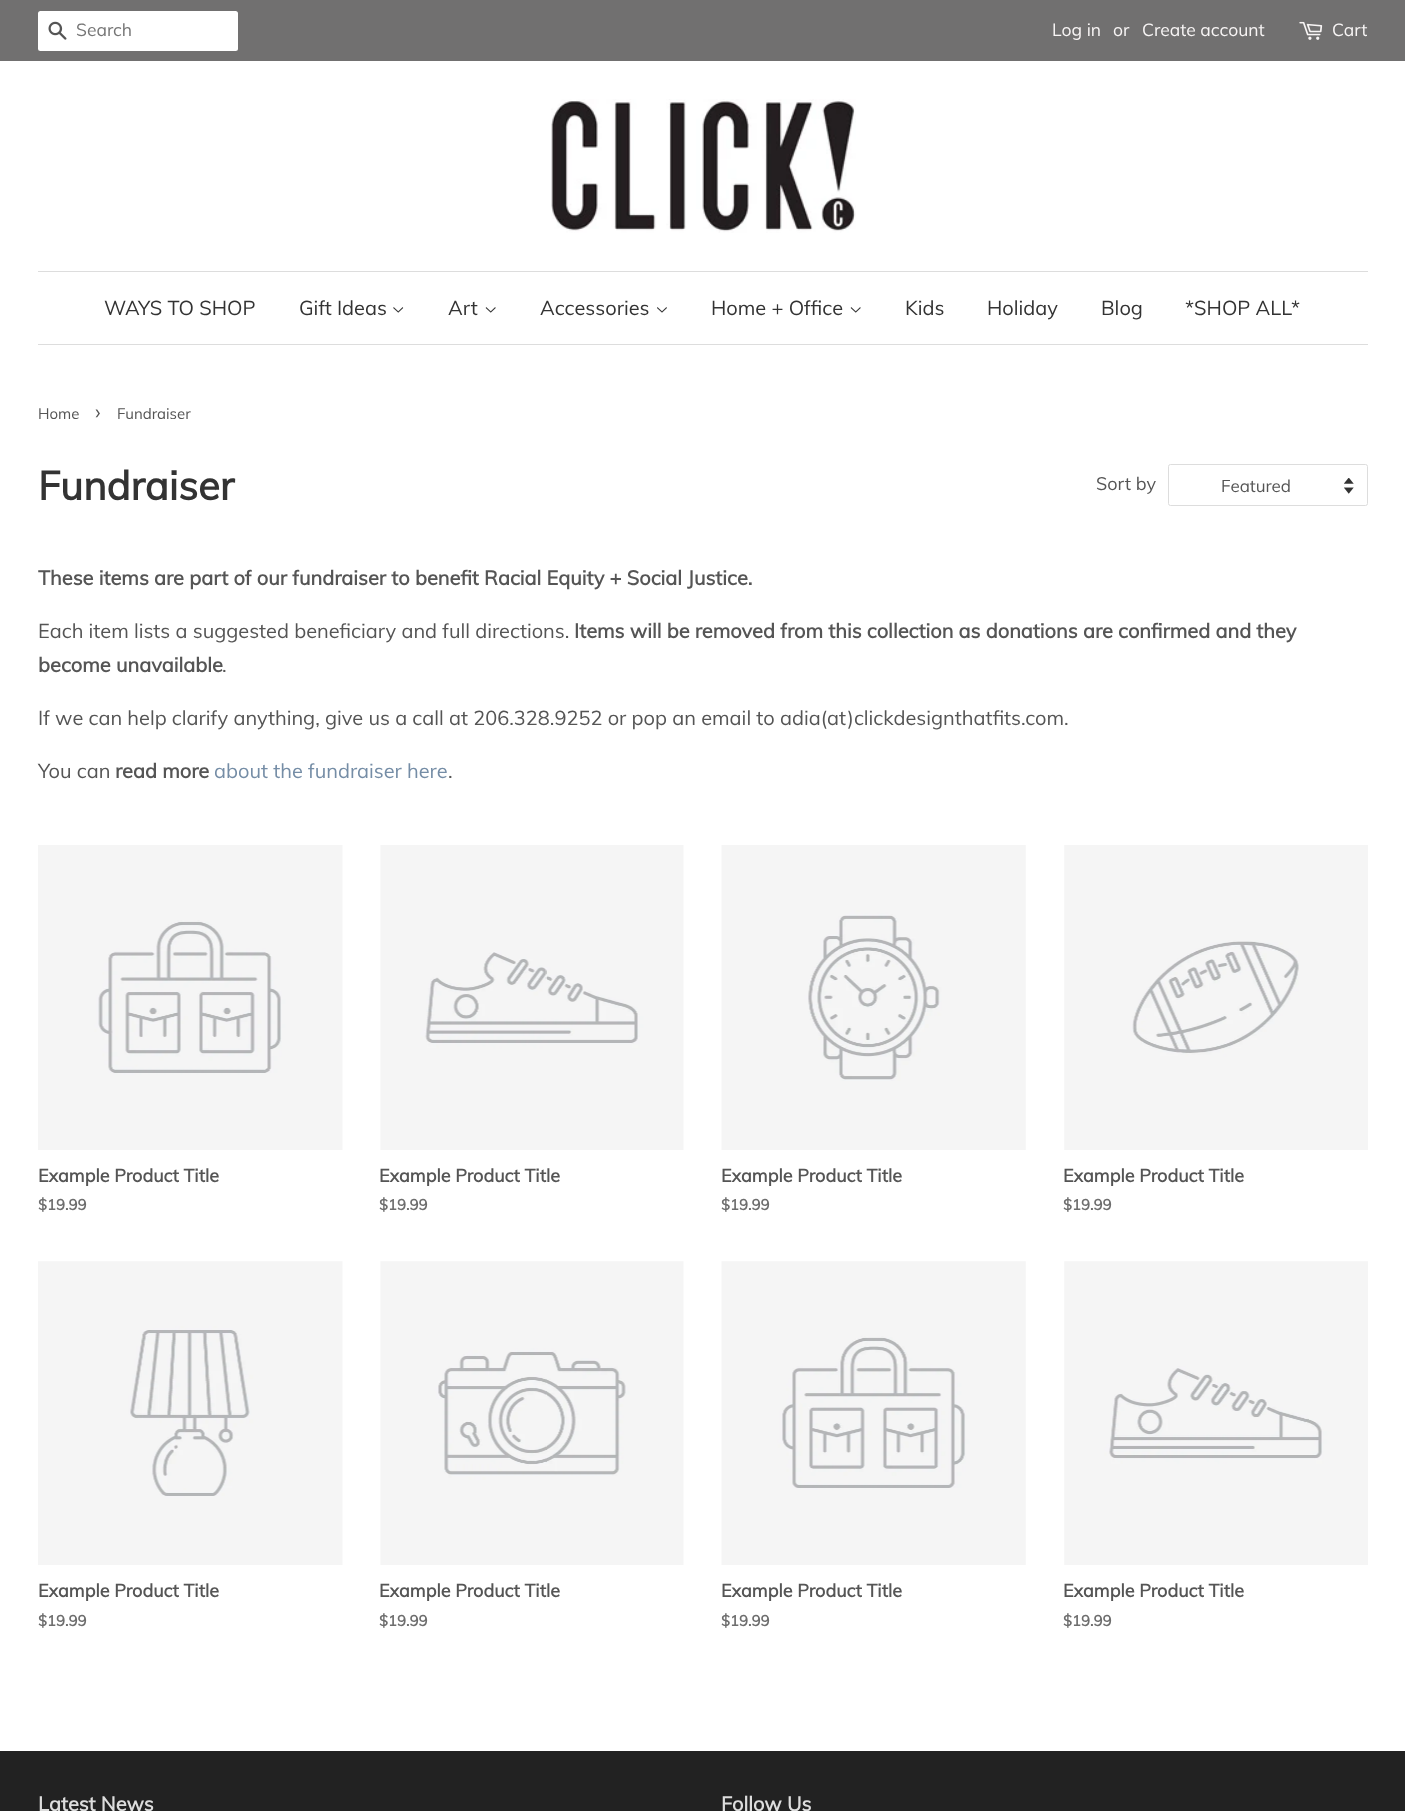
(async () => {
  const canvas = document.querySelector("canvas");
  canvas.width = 1405;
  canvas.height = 1811;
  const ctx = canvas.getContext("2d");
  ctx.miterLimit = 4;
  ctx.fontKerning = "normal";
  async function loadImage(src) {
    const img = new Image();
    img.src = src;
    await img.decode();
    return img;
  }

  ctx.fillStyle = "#ffffff";
  ctx.fillRect(0, 0, 1405, 1811);
  ctx.fillStyle = "#717070";
  ctx.fillRect(0, 0, 1405, 61);
  ctx.fillStyle = "#ffffff";
  ctx.beginPath();
  ctx.roundRect(38, 11, 200, 40, 2.5);
  ctx.fill();
  ctx.drawImage(await loadImage("img/1.png"), 48, 21, 19, 19);
  ctx.drawImage(await loadImage("img/2.png"), 1299, 21, 24, 19);
  ctx.drawImage(await loadImage("img/3.png"), 551, 99, 305, 134);
  ctx.fillStyle = "#dddddd";
  ctx.fillRect(38, 271, 1330, 1);
  ctx.fillRect(38, 344, 1330, 1);
  ctx.drawImage(await loadImage("img/4.png"), 393, 307, 11, 6);
  ctx.drawImage(await loadImage("img/5.png"), 485, 307, 11, 6);
  ctx.drawImage(await loadImage("img/6.png"), 657, 307, 10, 6);
  ctx.drawImage(await loadImage("img/5.png"), 850, 307, 11, 6);
  ctx.drawImage(await loadImage("img/7.png"), 1344, 478, 10, 16);
  ctx.beginPath();
  ctx.roundRect(1168.5, 464.5, 199, 41, 2);
  ctx.strokeStyle = "#dddddd";
  ctx.stroke();
  ctx.drawImage(await loadImage("img/8.png"), 38, 845, 305, 305);
  ctx.drawImage(await loadImage("img/9.png"), 380, 845, 304, 305);
  ctx.drawImage(await loadImage("img/10.png"), 721, 845, 305, 305);
  ctx.drawImage(await loadImage("img/11.png"), 1064, 845, 304, 305);
  ctx.drawImage(await loadImage("img/12.png"), 38, 1261, 305, 304);
  ctx.drawImage(await loadImage("img/13.png"), 380, 1261, 304, 304);
  ctx.drawImage(await loadImage("img/14.png"), 721, 1261, 305, 304);
  ctx.drawImage(await loadImage("img/15.png"), 1064, 1261, 304, 304);
  ctx.fillStyle = "#222222";
  ctx.fillRect(0, 1751, 1405, 60);
  ctx.font = "17.5px Muli";
  ctx.fillStyle = "#757575";
  ctx.fillText("Search", 76, 36);
  ctx.fillStyle = "#f8f5f5";
  for (const [text, x, y] of [
    ["Log in", 1052, 36],
    ["or", 1113, 36],
    ["Create account", 1142, 36],
    ["Cart", 1332, 36],
  ]) {
    ctx.fillText(text, x, y);
  }
  ctx.font = "20px Muli";
  ctx.fillStyle = "#333333";
  for (const [text, x, y] of [
    ["WAYS TO SHOP", 104, 315],
    ["Gift Ideas", 299, 315],
    ["Art", 448, 315],
    ["Accessories", 540, 315],
    ["Home + Office", 711, 315],
    ["Kids", 905, 315],
    ["Holiday", 987, 315],
    ["Blog", 1101, 315],
    ["*SHOP ALL*", 1185, 315],
  ]) {
    ctx.fillText(text, x, y);
  }
  ctx.font = "15px Muli";
  ctx.fillStyle = "#555555";
  ctx.fillText("Home", 38, 419);
  ctx.font = "21px Muli";
  ctx.fillText("›", 95, 419);
  ctx.font = "15px Muli";
  ctx.fillText("Fundraiser", 117, 419);
  ctx.font = "bold 40px Muli";
  ctx.fillStyle = "#333333";
  ctx.fillText("Fundraiser", 38, 500);
  ctx.font = "18px Muli";
  ctx.fillStyle = "#555555";
  ctx.fillText("Sort by", 1096, 490);
  ctx.font = "17px Muli";
  ctx.fillText("Featured", 1221, 492);
  ctx.font = "bold 20px Muli";
  ctx.fillText("These items are part of our fundraiser to benefit Racial Equity + Social Justice.", 38, 585);
  ctx.font = "20px Muli";
  ctx.fillText("Each item lists a suggested beneficiary and full directions.", 38, 638);
  ctx.font = "bold 20px Muli";
  ctx.fillText("Items will be removed from this collection as donations are confirmed and they", 574, 638);
  ctx.fillText("become unavailable", 38, 672);
  ctx.font = "20px Muli";
  for (const [text, x, y] of [
    [".", 222, 672],
    ["If we can help clarify anything, give us a call at 206.328.9252 or pop an email to adia(at)clickdesignthatfits.com.", 38, 725],
    ["You can", 38, 778],
  ]) {
    ctx.fillText(text, x, y);
  }
  ctx.font = "bold 20px Muli";
  ctx.fillText("read more", 115, 778);
  ctx.font = "20px Muli";
  ctx.fillStyle = "#758da6";
  ctx.fillText("about the fundraiser here", 214, 778);
  ctx.fillStyle = "#555555";
  ctx.fillText(".", 448, 778);
  ctx.font = "bold 18px Muli";
  ctx.fillText("Example Product Title", 38, 1182);
  ctx.font = "bold 15px Muli";
  ctx.fillStyle = "#6e6e6e";
  ctx.fillText("$19.99", 38, 1210);
  ctx.font = "bold 18px Muli";
  ctx.fillStyle = "#555555";
  ctx.fillText("Example Product Title", 379, 1182);
  ctx.font = "bold 15px Muli";
  ctx.fillStyle = "#6e6e6e";
  ctx.fillText("$19.99", 379, 1210);
  ctx.font = "bold 18px Muli";
  ctx.fillStyle = "#555555";
  ctx.fillText("Example Product Title", 721, 1182);
  ctx.font = "bold 15px Muli";
  ctx.fillStyle = "#6e6e6e";
  ctx.fillText("$19.99", 721, 1210);
  ctx.font = "bold 18px Muli";
  ctx.fillStyle = "#555555";
  ctx.fillText("Example Product Title", 1063, 1182);
  ctx.font = "bold 15px Muli";
  ctx.fillStyle = "#6e6e6e";
  ctx.fillText("$19.99", 1063, 1210);
  ctx.font = "bold 18px Muli";
  ctx.fillStyle = "#555555";
  ctx.fillText("Example Product Title", 38, 1597);
  ctx.font = "bold 15px Muli";
  ctx.fillStyle = "#6e6e6e";
  ctx.fillText("$19.99", 38, 1626);
  ctx.font = "bold 18px Muli";
  ctx.fillStyle = "#555555";
  ctx.fillText("Example Product Title", 379, 1597);
  ctx.font = "bold 15px Muli";
  ctx.fillStyle = "#6e6e6e";
  ctx.fillText("$19.99", 379, 1626);
  ctx.font = "bold 18px Muli";
  ctx.fillStyle = "#555555";
  ctx.fillText("Example Product Title", 721, 1597);
  ctx.font = "bold 15px Muli";
  ctx.fillStyle = "#6e6e6e";
  ctx.fillText("$19.99", 721, 1626);
  ctx.font = "bold 18px Muli";
  ctx.fillStyle = "#555555";
  ctx.fillText("Example Product Title", 1063, 1597);
  ctx.font = "bold 15px Muli";
  ctx.fillStyle = "#6e6e6e";
  ctx.fillText("$19.99", 1063, 1626);
  ctx.font = "bold 20px Muli";
  ctx.fillStyle = "#dddddd";
  ctx.fillText("Latest News", 38, 1811);
  ctx.fillText("Follow Us", 721, 1811);
})();
